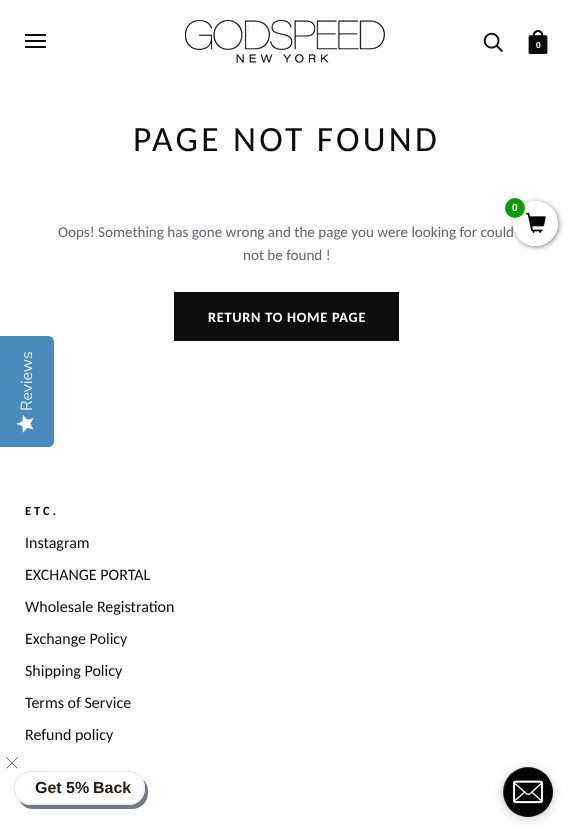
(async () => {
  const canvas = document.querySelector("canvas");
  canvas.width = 573;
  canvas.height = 837;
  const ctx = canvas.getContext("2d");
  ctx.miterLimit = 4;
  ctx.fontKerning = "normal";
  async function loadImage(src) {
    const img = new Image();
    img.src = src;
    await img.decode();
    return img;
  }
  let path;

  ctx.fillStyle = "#ffffff";
  ctx.fillRect(0, 0, 573, 837);
  for (const [x, y, w, h, color] of [
    [25, 34, 21, 2, "#0c0c0d"],
    [25, 40, 21, 2, "#0c0c0d"],
    [25, 46, 21, 2, "#0c0c0d"],
  ]) {
    ctx.fillStyle = color;
    ctx.fillRect(x, y, w, h);
  }
  ctx.drawImage(await loadImage("img/1.png"), 185, 20, 200, 43);
  ctx.drawImage(await loadImage("img/2.png"), 483, 32, 20, 20);
  ctx.drawImage(await loadImage("img/3.png"), 528, 30, 20, 24);
  ctx.fillRect(174, 292, 225, 49);
  ctx.save();
  path = new Path2D("M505 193H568V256H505ZM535.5 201C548 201 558 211 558 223.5C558 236 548 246 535.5 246C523 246 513 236 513 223.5C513 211 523 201 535.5 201Z");
  ctx.clip(path, "evenodd");
  ctx.fillStyle = "#808080";
  ctx.filter = "blur(2.5px)";
  ctx.beginPath();
  ctx.roundRect(514, 202, 45, 45, 22.5);
  ctx.fill();
  ctx.filter = "none";
  ctx.restore();
  ctx.fillStyle = "#498cbc";
  path = new Path2D("M0 447V336H48C51 336 54 338 54 342V441C54 445 51 447 48 447Z");
  ctx.fill(path);
  ctx.drawImage(await loadImage("img/5.png"), 16, 415, 18, 18);
  path = new Path2D("M7 768L17 758M7 758L17 768");
  ctx.strokeStyle = "#374151";
  ctx.lineWidth = 0.8;
  ctx.lineCap = "round";
  ctx.lineJoin = "round";
  ctx.stroke(path);
  ctx.fillStyle = "#737a85";
  path = new Path2D("M19 800C22 806 27 809 33 809H132C141 809 148 802 148 793V791C148 786 146 782 143 780C144 782 145 784 145 787V789C145 798 138 805 129 805H30C26 805 22 803 19 800Z");
  ctx.fill(path);
  ctx.fillStyle = "#ffffff";
  ctx.beginPath();
  ctx.roundRect(14.5, 771.5, 130, 33, 15.5);
  ctx.fill();
  ctx.strokeStyle = "#e5e7eb";
  ctx.lineWidth = 1;
  ctx.lineJoin = "miter";
  ctx.stroke();
  ctx.fillStyle = "rgba(128, 128, 128, 0.4)";
  ctx.filter = "blur(5.5px)";
  ctx.beginPath();
  ctx.roundRect(503, 769, 50, 50, 25);
  ctx.fill();
  ctx.filter = "none";
  ctx.fillStyle = "#000000";
  ctx.beginPath();
  ctx.arc(528, 792, 25, 0, Math.PI * 2);
  ctx.fill();
  ctx.fillStyle = "rgba(255, 255, 255, 0.15)";
  path = new Path2D("M529 768C534 768 538 769 542 771C518 756 491 786 508 808C499 793 506 768 529 768Z");
  ctx.fill(path);
  ctx.drawImage(await loadImage("img/6.png"), 513, 780, 30, 24);
  ctx.font = "bold 9px Carlito";
  ctx.fillStyle = "#ffffff";
  ctx.fillText("0", 536, 48);
  ctx.letterSpacing = "3.25px";
  ctx.font = "35.5px Carlito";
  ctx.fillStyle = "#0c0c0d";
  ctx.fillText("PAGE NOT FOUND", 133, 151);
  ctx.letterSpacing = "0px";
  ctx.font = "15.1px Carlito";
  ctx.fillStyle = "#66656e";
  ctx.fillText("Oops! Something has gone wrong and the page you were looking for could", 58, 237);
  ctx.fillText("not be found !", 243, 260);
  ctx.letterSpacing = "0.75px";
  ctx.font = "bold 14.25px Carlito";
  ctx.fillStyle = "#ffffff";
  ctx.fillText("RETURN TO HOME PAGE", 208, 322);
  ctx.letterSpacing = "3px";
  ctx.font = "bold 12.5px Carlito";
  ctx.fillStyle = "#000000";
  ctx.fillText("ETC.", 25, 515);
  ctx.letterSpacing = "0px";
  ctx.font = "16px Carlito";
  ctx.fillStyle = "#0c0c0d";
  for (const [text, x, y] of [
    ["Instagram", 25, 548],
    ["EXCHANGE PORTAL", 25, 580],
    ["Wholesale Registration", 25, 612],
    ["Exchange Policy", 25, 644],
    ["Shipping Policy", 25, 676],
    ["Terms of Service", 25, 708],
    ["Refund policy", 25, 740],
  ]) {
    ctx.fillText(text, x, y);
  }
  ctx.fillStyle = "rgba(255, 255, 255, 0.9)";
  ctx.beginPath();
  ctx.arc(535.5, 223.5, 22.5, 0, Math.PI * 2);
  ctx.fill();
  ctx.drawImage(await loadImage("img/4.png"), 526, 213, 20, 20);
  ctx.fillStyle = "#109b08";
  ctx.beginPath();
  ctx.arc(515, 208, 11, 0, Math.PI * 2);
  ctx.fill();
  ctx.strokeStyle = "#ffffff";
  ctx.lineWidth = 2;
  ctx.stroke();
  ctx.font = "bold 10px Roboto";
  ctx.fillStyle = "#ffffff";
  ctx.fillText("0", 512, 211);
  ctx.font = "300 16px Nunito Sans";
  ctx.save();
  ctx.translate(32, 411);
  ctx.rotate(-90 * Math.PI / 180);
  ctx.fillText("Reviews", 0, 0);
  ctx.restore();
  ctx.font = "bold 16px Liberation Sans";
  ctx.fillStyle = "#2c1804";
  for (const [text, x, y] of [
    ["Get", 35, 793],
    ["5%", 66, 793],
    ["Back", 93, 793],
  ]) {
    ctx.fillText(text, x, y);
  }
})();
